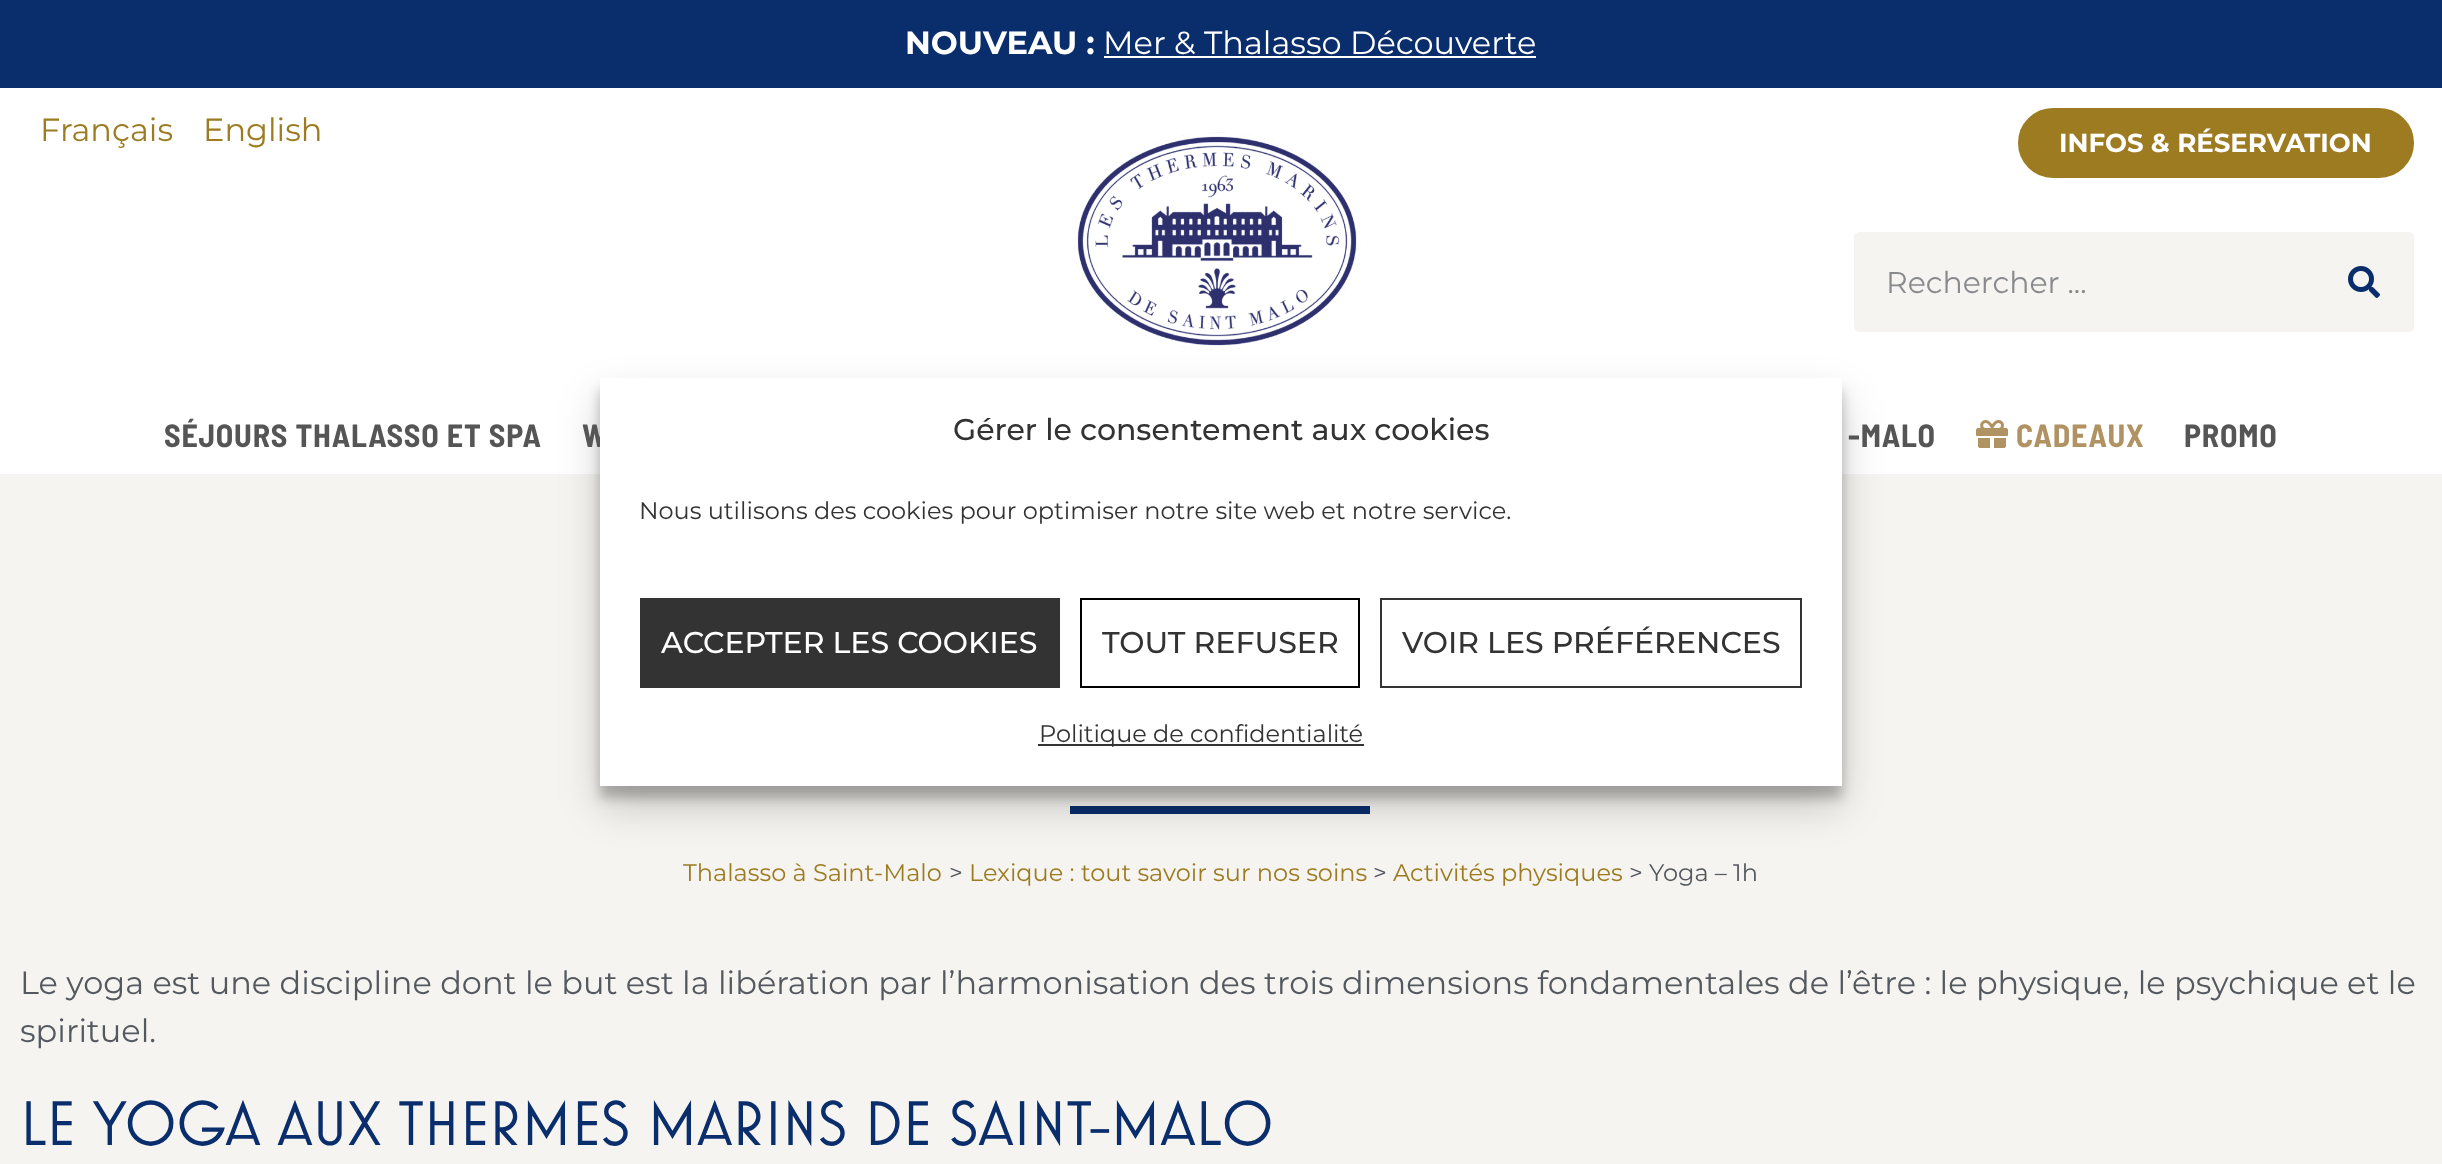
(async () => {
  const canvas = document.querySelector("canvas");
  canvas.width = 2442;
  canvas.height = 1164;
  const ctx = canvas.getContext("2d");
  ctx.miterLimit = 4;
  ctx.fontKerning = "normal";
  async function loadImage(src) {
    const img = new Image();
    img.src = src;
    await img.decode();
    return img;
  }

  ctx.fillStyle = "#f5f4f0";
  ctx.fillRect(0, 0, 2442, 1164);
  for (const [x, y, w, h, color] of [
    [0, 0, 2442, 88, "#0a2d6c"],
    [1104, 56, 432, 2, "#ffffff"],
    [0, 88, 2442, 386, "#ffffff"],
  ]) {
    ctx.fillStyle = color;
    ctx.fillRect(x, y, w, h);
  }
  ctx.drawImage(await loadImage("img/1.png"), 1073, 132, 288, 218);
  ctx.fillStyle = "#9c7b21";
  ctx.beginPath();
  ctx.roundRect(2019, 109, 394, 68, 34);
  ctx.fill();
  ctx.strokeStyle = "#9c7b21";
  ctx.lineWidth = 2;
  ctx.stroke();
  ctx.fillStyle = "#f5f4f0";
  ctx.beginPath();
  ctx.roundRect(1854, 232, 560, 100, 6);
  ctx.fill();
  ctx.beginPath();
  ctx.roundRect(1854, 232, 460, 100, 6);
  ctx.fill();
  ctx.beginPath();
  ctx.roundRect(2314, 232, 100, 100, [0, 6, 6, 0]);
  ctx.fill();
  ctx.drawImage(await loadImage("img/2.png"), 2348, 266, 32, 32);
  ctx.drawImage(await loadImage("img/3.png"), 1976, 420, 32, 28);
  ctx.fillStyle = "#0a2d6c";
  ctx.fillRect(1070, 806, 300, 8);
  ctx.fillStyle = "rgba(0, 0, 0, 0.23)";
  ctx.filter = "blur(6px)";
  ctx.beginPath();
  ctx.roundRect(600, 390, 1242, 408, 2);
  ctx.fill();
  ctx.filter = "none";
  ctx.fillStyle = "rgba(0, 0, 0, 0.19)";
  ctx.filter = "blur(20px)";
  ctx.beginPath();
  ctx.roundRect(600, 398, 1242, 408, 2);
  ctx.fill();
  ctx.filter = "none";
  ctx.font = "bold 32px Montserrat";
  ctx.fillStyle = "#ffffff";
  ctx.fillText("NOUVEAU :", 905, 54);
  ctx.font = "32px Montserrat";
  ctx.fillText("Mer & Thalasso Découverte", 1103, 54);
  ctx.fillStyle = "#9c7b21";
  ctx.fillText("Français", 40, 141);
  ctx.fillText("English", 203, 141);
  ctx.font = "bold 26px Montserrat";
  ctx.fillStyle = "#ffffff";
  ctx.fillText("INFOS & RÉSERVATION", 2059, 152);
  ctx.font = "30px Montserrat";
  ctx.fillStyle = "#888a8d";
  ctx.fillText("Rechercher ...", 1886, 293);
  ctx.letterSpacing = "0.8px";
  ctx.font = "bold 32px Barlow Semi Condensed";
  ctx.fillStyle = "#555555";
  for (const [text, x, y] of [
    ["SÉJOURS THALASSO ET SPA", 164, 447],
    ["W", 582, 447],
    ["-MALO", 1848, 447],
  ]) {
    ctx.fillText(text, x, y);
  }
  ctx.fillStyle = "#b19263";
  ctx.fillText("CADEAUX", 2016, 447);
  ctx.fillStyle = "#555555";
  ctx.fillText("PROMO", 2184, 447);
  ctx.fillStyle = "#ffffff";
  ctx.beginPath();
  ctx.roundRect(600, 378, 1242, 408, [2, 0, 0, 0]);
  ctx.fill();
  ctx.letterSpacing = "0px";
  ctx.font = "500 30px Montserrat";
  ctx.fillStyle = "#333333";
  ctx.fillText("Gérer le consentement aux cookies", 953, 440);
  ctx.font = "24px Montserrat";
  ctx.fillText("Nous utilisons des cookies pour optimiser notre site web et notre service.", 639, 519);
  ctx.fillRect(640, 598, 420, 90);
  ctx.font = "500 30px Montserrat";
  ctx.fillStyle = "#ffffff";
  ctx.fillText("ACCEPTER LES COOKIES", 661, 653);
  ctx.strokeStyle = "#000000";
  ctx.strokeRect(1081, 599, 278, 88);
  ctx.fillStyle = "#333333";
  ctx.fillText("TOUT REFUSER", 1102, 653);
  ctx.strokeStyle = "#333333";
  ctx.strokeRect(1381, 599, 420, 88);
  ctx.fillText("VOIR LES PRÉFÉRENCES", 1402, 653);
  ctx.fillRect(1038, 744, 326, 2);
  ctx.font = "24px Montserrat";
  ctx.fillText("Politique de confidentialité", 1039, 742);
  ctx.fillStyle = "#9c7b21";
  ctx.fillText("Thalasso à Saint-Malo", 683, 881);
  ctx.fillStyle = "#54595f";
  ctx.fillText(">", 949, 881);
  ctx.fillStyle = "#9c7b21";
  ctx.fillText("Lexique : tout savoir sur nos soins", 969, 881);
  ctx.fillStyle = "#54595f";
  ctx.fillText(">", 1373, 881);
  ctx.fillStyle = "#9c7b21";
  ctx.fillText("Activités physiques", 1393, 881);
  ctx.fillStyle = "#54595f";
  ctx.fillText("> Yoga – 1h", 1629, 881);
  ctx.font = "32px Montserrat";
  ctx.fillText("Le yoga est une discipline dont le but est la libération par l’harmonisation des trois dimensions fondamentales de l’être : le physique, le psychique et le", 20, 994);
  ctx.fillText("spirituel.", 20, 1042);
  ctx.font = "64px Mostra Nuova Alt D";
  ctx.fillStyle = "#0a2d6c";
  ctx.fillText("LE YOGA AUX THERMES MARINS DE SAINT-MALO", 20, 1145);
})();
